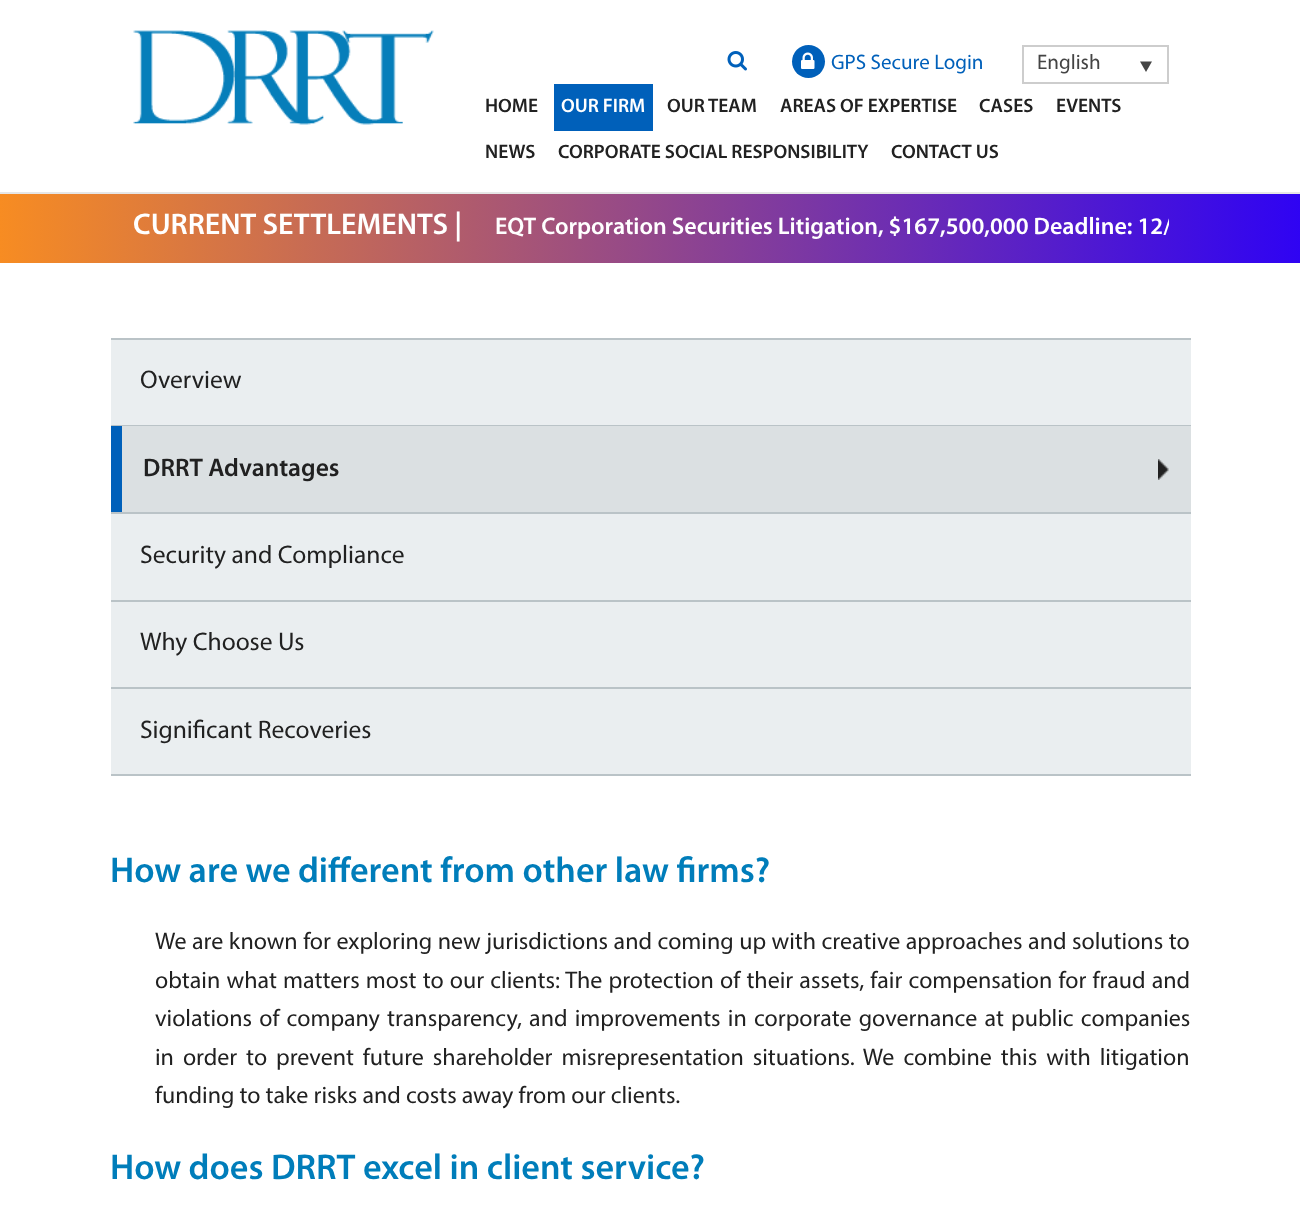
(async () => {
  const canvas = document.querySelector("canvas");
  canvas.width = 1300;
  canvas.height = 1231;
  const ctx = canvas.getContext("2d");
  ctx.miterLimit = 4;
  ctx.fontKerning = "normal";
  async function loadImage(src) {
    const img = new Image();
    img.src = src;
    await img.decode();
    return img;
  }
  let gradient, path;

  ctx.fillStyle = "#ffffff";
  ctx.fillRect(0, 0, 1300, 1231);
  ctx.fillStyle = "#e6e6e6";
  ctx.fillRect(0, 192, 1300, 2);
  ctx.drawImage(await loadImage("img/1.png"), 133, 30, 301, 95);
  ctx.fillStyle = "#0060ba";
  ctx.beginPath();
  ctx.arc(808.5, 61.5, 16.5, 0, Math.PI * 2);
  ctx.fill();
  ctx.drawImage(await loadImage("img/2.png"), 801, 52, 14, 17);
  ctx.strokeStyle = "#cdcdcd";
  ctx.lineWidth = 2;
  ctx.strokeRect(1023, 46, 145, 37);
  ctx.fillStyle = "#444444";
  path = new Path2D("M1140 61.5H1152L1146 72Z");
  ctx.fill(path);
  ctx.drawImage(await loadImage("img/3.png"), 727, 51, 20, 20);
  ctx.fillStyle = "#0060ba";
  ctx.fillRect(554, 84, 99, 47);
  gradient = ctx.createLinearGradient(0, 228, 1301, 228);
  gradient.addColorStop(0, "#f78c22");
  gradient.addColorStop(1, "#2f03f3");
  ctx.fillStyle = gradient;
  ctx.fillRect(0, 194, 1300, 69);
  for (const [x, y, w, h, color] of [
    [111, 340, 1080, 434, "#eaeef0"],
    [111, 338, 1080, 2, "#bac3c7"],
    [111, 425, 1080, 1, "#bac3c7"],
    [111, 512, 1080, 2, "#bac3c7"],
    [122, 426, 1069, 86, "#dbe0e2"],
  ]) {
    ctx.fillStyle = color;
    ctx.fillRect(x, y, w, h);
  }
  ctx.drawImage(await loadImage("img/4.png"), 1158, 459, 11, 21);
  for (const [x, y, w, h, color] of [
    [111, 426, 11, 86, "#0060ba"],
    [111, 600, 1080, 2, "#bac3c7"],
    [111, 687, 1080, 2, "#bac3c7"],
    [111, 774, 1080, 2, "#bac3c7"],
  ]) {
    ctx.fillStyle = color;
    ctx.fillRect(x, y, w, h);
  }
  ctx.font = "21px Myriad";
  ctx.fillStyle = "#0060ba";
  ctx.fillText("GPS Secure Login", 831, 69);
  ctx.fillStyle = "#444444";
  ctx.fillText("English", 1037, 69);
  ctx.font = "600 19.5px Myriad";
  ctx.fillStyle = "#212121";
  ctx.fillText("HOME", 485, 112);
  ctx.fillStyle = "#ffffff";
  ctx.fillText("OUR FIRM", 561, 112);
  ctx.fillStyle = "#212121";
  for (const [text, x, y] of [
    ["OUR TEAM", 667, 112],
    ["AREAS OF EXPERTISE", 780, 112],
    ["CASES", 979, 112],
    ["EVENTS", 1056, 112],
    ["NEWS", 485, 158],
    ["CORPORATE SOCIAL RESPONSIBILITY", 558, 158],
    ["CONTACT US", 891, 158],
  ]) {
    ctx.fillText(text, x, y);
  }
  ctx.font = "600 30px Myriad";
  ctx.fillStyle = "#ffffff";
  ctx.fillText("CURRENT SETTLEMENTS |", 133, 234);
  ctx.save();
  ctx.beginPath();
  ctx.rect(485, 206, 684, 45);
  ctx.clip();
  ctx.font = "600 24px Myriad";
  ctx.fillText("EQT Corporation Securities Litigation, $167,500,000 Deadline: 12/", 495, 234);
  ctx.restore();
  ctx.font = "25.5px Myriad";
  ctx.fillStyle = "#212121";
  ctx.fillText("Overview", 140, 388);
  ctx.font = "600 25.5px Myriad";
  ctx.fillText("DRRT Advantages", 143, 476);
  ctx.font = "25.5px Myriad";
  for (const [text, x, y] of [
    ["Security and Compliance", 140, 563],
    ["Why Choose Us", 140, 650],
    ["Significant Recoveries", 140, 738],
  ]) {
    ctx.fillText(text, x, y);
  }
  ctx.font = "600 36px Myriad";
  ctx.fillStyle = "#007dba";
  ctx.fillText("How are we different from other law firms?", 110, 882);
  ctx.wordSpacing = "0.4px";
  ctx.font = "24px Myriad";
  ctx.fillStyle = "#212121";
  ctx.fillText("We are known for exploring new jurisdictions and coming up with creative approaches and solutions to", 155, 949);
  ctx.wordSpacing = "1.1px";
  ctx.fillText("obtain what matters most to our clients: The protection of their assets, fair compensation for fraud and", 155, 988);
  ctx.wordSpacing = "2.1px";
  ctx.fillText("violations of company transparency, and improvements in corporate governance at public companies", 155, 1026);
  ctx.wordSpacing = "3.9px";
  ctx.fillText("in order to prevent future shareholder misrepresentation situations. We combine this with litigation", 155, 1065);
  ctx.wordSpacing = "0px";
  ctx.fillText("funding to take risks and costs away from our clients.", 155, 1103);
  ctx.font = "600 36px Myriad";
  ctx.fillStyle = "#007dba";
  ctx.fillText("How does DRRT excel in client service?", 110, 1179);
})();
